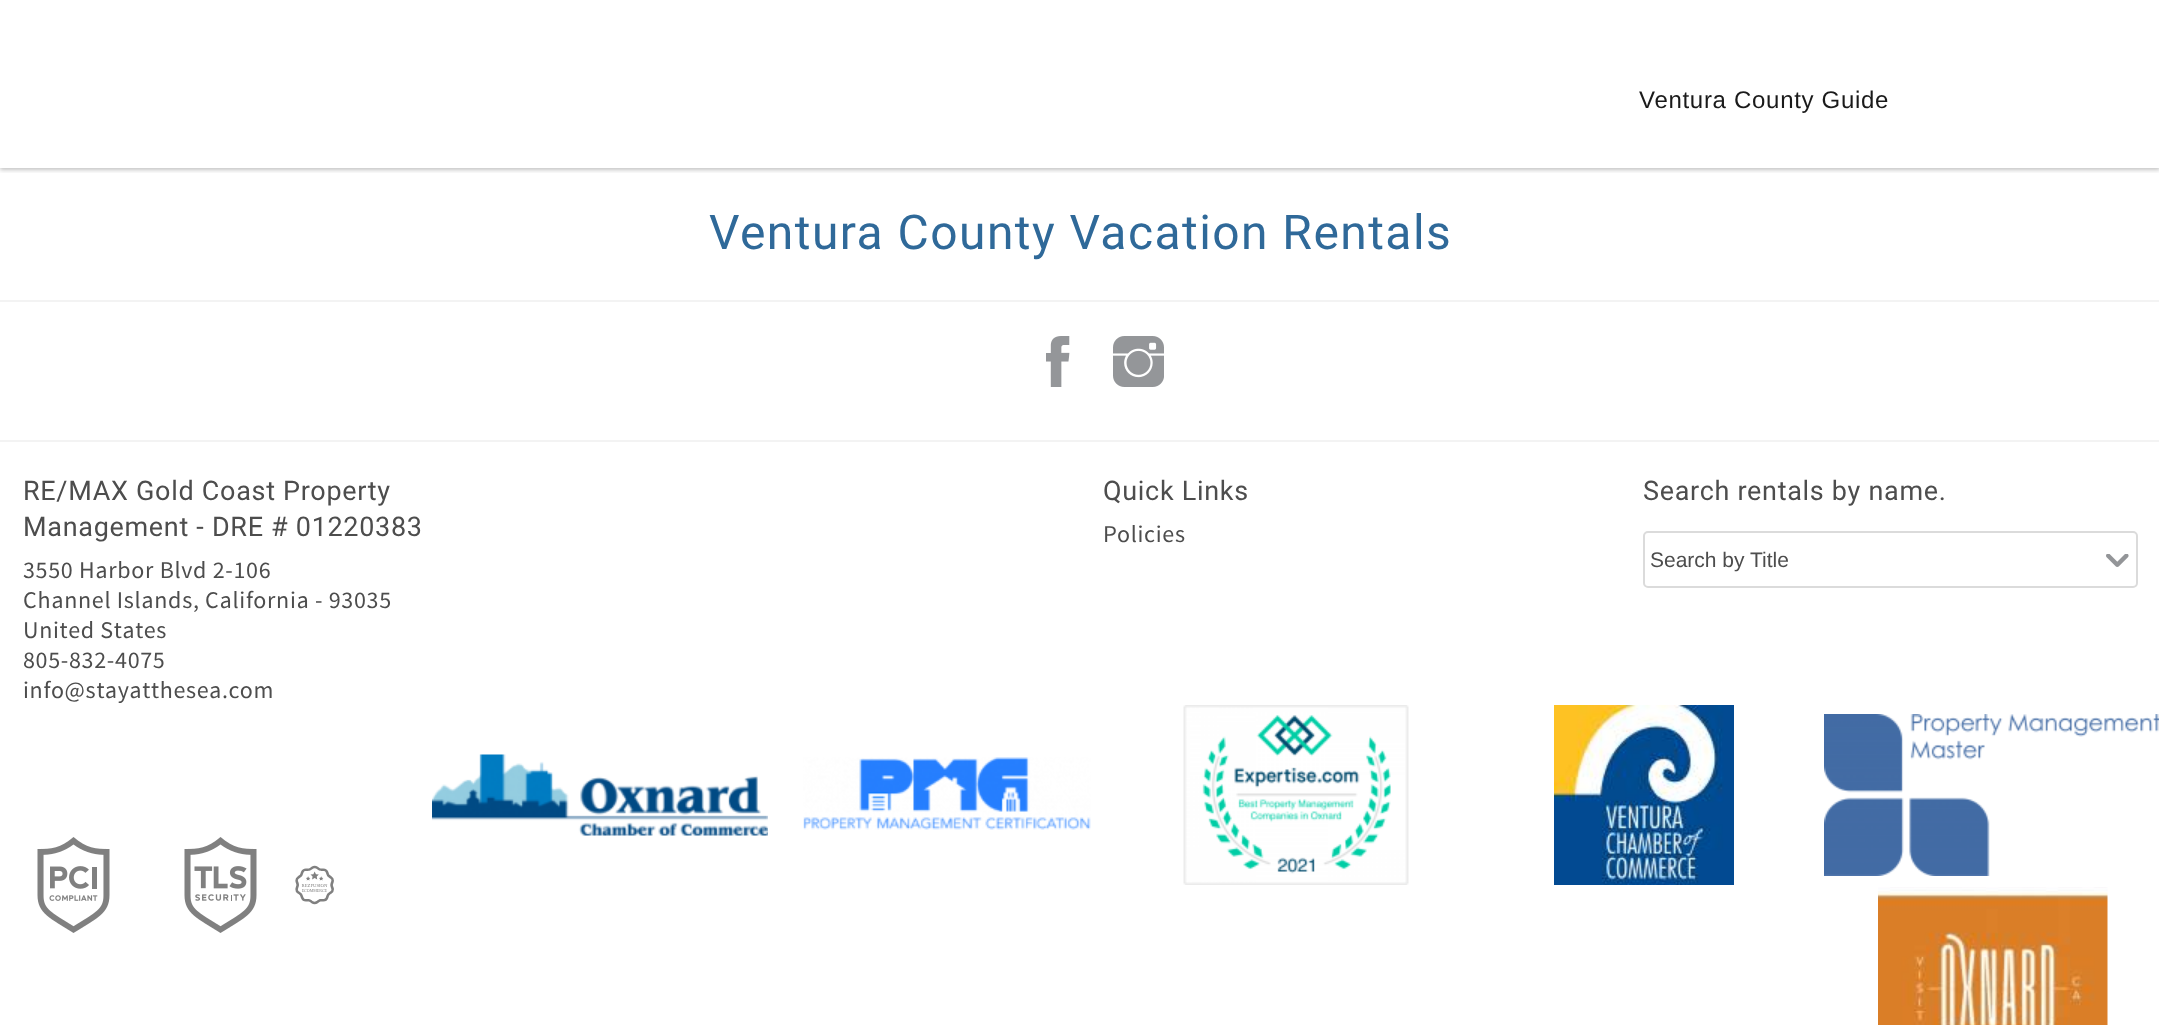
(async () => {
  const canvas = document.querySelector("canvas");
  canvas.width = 2159;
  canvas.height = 1025;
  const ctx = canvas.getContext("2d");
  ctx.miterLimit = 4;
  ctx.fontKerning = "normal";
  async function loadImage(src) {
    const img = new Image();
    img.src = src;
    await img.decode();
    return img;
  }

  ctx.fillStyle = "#ffffff";
  ctx.fillRect(0, 0, 2159, 1025);
  ctx.save();
  ctx.beginPath();
  ctx.rect(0, 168, 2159, 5);
  ctx.clip();
  ctx.fillStyle = "rgba(17, 17, 17, 0.25)";
  ctx.filter = "blur(2px)";
  ctx.beginPath();
  ctx.rect(0, -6, 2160, 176);
  ctx.fill();
  ctx.filter = "none";
  ctx.restore();
  ctx.fillStyle = "#f3f3f3";
  ctx.fillRect(0, 300, 2159, 2);
  ctx.fillRect(0, 440, 2159, 2);
  ctx.drawImage(await loadImage("img/1.png"), 1046, 336, 24, 51);
  ctx.drawImage(await loadImage("img/2.png"), 1113, 336, 51, 51);
  ctx.drawImage(await loadImage("img/3.png"), 2106, 554, 23, 13);
  ctx.beginPath();
  ctx.roundRect(1644, 532, 493, 55, 4);
  ctx.strokeStyle = "#dbdbdb";
  ctx.lineWidth = 2;
  ctx.stroke();
  ctx.drawImage(await loadImage("img/4.png"), 37, 837, 73, 96);
  ctx.drawImage(await loadImage("img/5.png"), 184, 837, 73, 96);
  ctx.drawImage(await loadImage("img/6.png"), 295, 865, 39, 40);
  ctx.drawImage(await loadImage("img/7.png"), 432, 754, 336, 82);
  ctx.drawImage(await loadImage("img/8.png"), 803, 757, 288, 73);
  ctx.drawImage(await loadImage("img/9.png"), 1183, 705, 226, 180);
  ctx.drawImage(await loadImage("img/10.png"), 1554, 705, 180, 180);
  ctx.drawImage(await loadImage("img/11.png"), 1824, 714, 335, 162);
  ctx.drawImage(await loadImage("img/12.png"), 1878, 887, 230, 138);
  ctx.letterSpacing = "0.7px";
  ctx.font = "24px Liberation Sans";
  ctx.fillStyle = "#1a1a1a";
  ctx.fillText("Ventura County Guide", 1639, 108);
  ctx.letterSpacing = "1.45px";
  ctx.font = "48px Roboto";
  ctx.fillStyle = "#2f6999";
  ctx.fillText("Ventura County Vacation Rentals", 709, 249);
  ctx.letterSpacing = "0.7px";
  ctx.font = "27px Roboto";
  ctx.fillStyle = "#4d4d4d";
  ctx.fillText("RE/MAX Gold Coast Property", 23, 500);
  ctx.fillText("Management - DRE # 01220383", 23, 536);
  ctx.font = "24px Source Sans Pro";
  for (const [text, x, y] of [
    ["3550 Harbor Blvd 2-106", 23, 578],
    ["Channel Islands, California - 93035", 23, 608],
    ["United States", 23, 638],
    ["805-832-4075", 23, 668],
    ["info@stayatthesea.com", 23, 698],
  ]) {
    ctx.fillText(text, x, y);
  }
  ctx.font = "27px Roboto";
  ctx.fillText("Quick Links", 1103, 500);
  ctx.font = "24px Source Sans Pro";
  ctx.fillText("Policies", 1103, 542);
  ctx.font = "27px Roboto";
  ctx.fillText("Search rentals by name.", 1643, 500);
  ctx.letterSpacing = "0px";
  ctx.font = "21px Liberation Sans";
  ctx.fillText("Search by Title", 1650, 567);
})();
